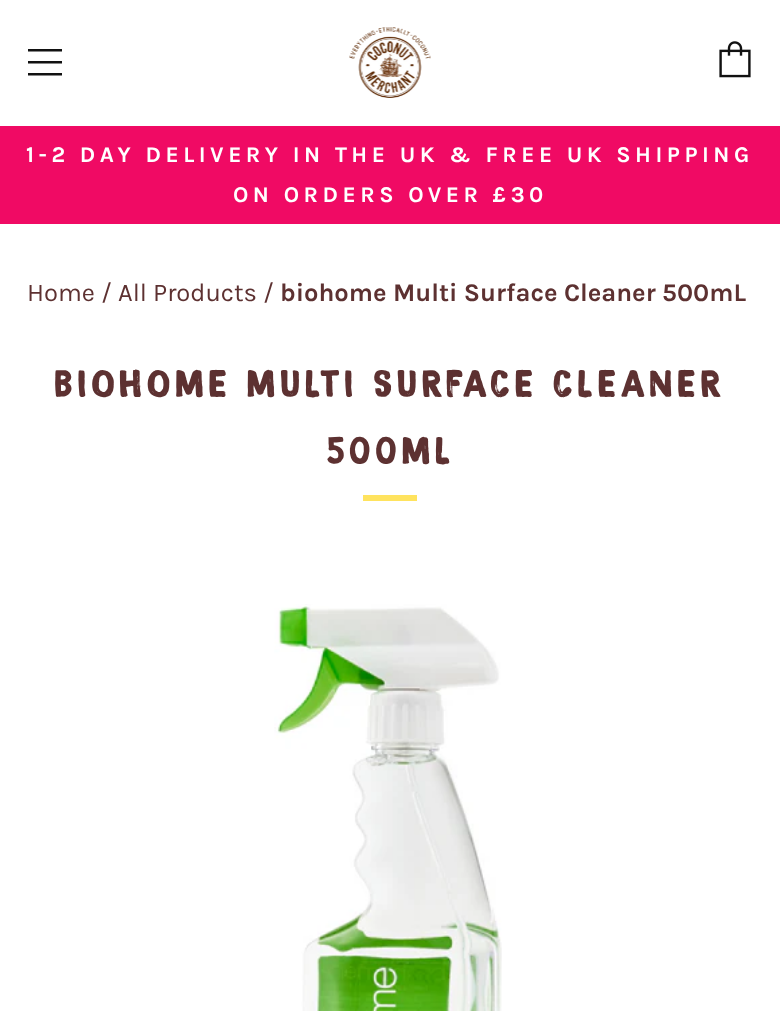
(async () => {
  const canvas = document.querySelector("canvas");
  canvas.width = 780;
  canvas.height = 1011;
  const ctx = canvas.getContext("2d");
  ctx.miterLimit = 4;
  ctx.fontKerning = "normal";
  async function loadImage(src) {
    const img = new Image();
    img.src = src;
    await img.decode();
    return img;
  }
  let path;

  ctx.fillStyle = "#ffffff";
  ctx.fillRect(0, 0, 780, 1011);
  ctx.fillStyle = "#111111";
  path = new Path2D("M28 51.5H62V49H28ZM28 75.5H62V73H28ZM28 63.5H62V61H28Z");
  ctx.fill(path);
  ctx.drawImage(await loadImage("img/1.png"), 349, 27, 82, 71);
  ctx.drawImage(await loadImage("img/2.png"), 719, 41, 32, 37);
  ctx.fillStyle = "#f00a64";
  ctx.fillRect(0, 126, 780, 98);
  ctx.fillStyle = "#ffe35e";
  ctx.fillRect(363, 495, 54, 6);
  ctx.drawImage(await loadImage("img/3.png"), 274, 604, 228, 407);
  ctx.letterSpacing = "4.5px";
  ctx.font = "bold 22.5px Karla";
  ctx.fillStyle = "#ffffff";
  ctx.fillText("1-2 DAY DELIVERY IN THE UK & FREE UK SHIPPING", 26, 162);
  ctx.fillText("ON ORDERS OVER £30", 233, 202);
  ctx.letterSpacing = "0px";
  ctx.font = "25.5px Karla";
  ctx.fillStyle = "#5d3131";
  ctx.fillText("Home / All Products /", 27, 301);
  ctx.font = "bold 25.5px Karla";
  ctx.fillText("biohome Multi Surface Cleaner 500mL", 280, 301);
  ctx.letterSpacing = "4.5px";
  ctx.font = "39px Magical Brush";
  ctx.fillText("BIOHOME MULTI SURFACE CLEANER", 54, 397);
  ctx.fillText("500ML", 326, 464);
})();
